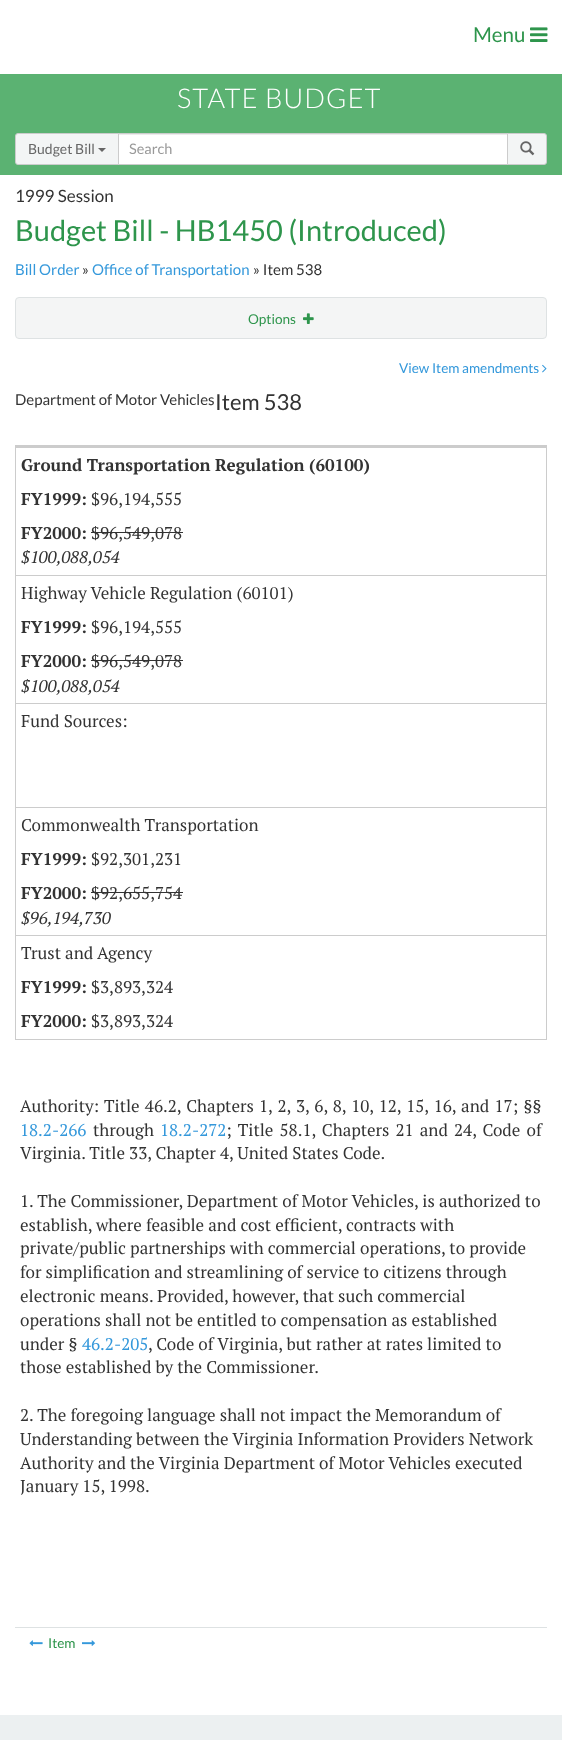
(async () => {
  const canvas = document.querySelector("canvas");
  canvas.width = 562;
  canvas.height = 1740;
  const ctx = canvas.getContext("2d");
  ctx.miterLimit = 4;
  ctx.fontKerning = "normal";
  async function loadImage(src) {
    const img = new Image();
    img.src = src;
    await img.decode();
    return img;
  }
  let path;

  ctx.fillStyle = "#ffffff";
  ctx.fillRect(0, 0, 562, 1740);
  ctx.drawImage(await loadImage("img/1.png"), 530, 27, 18, 15);
  for (const [x, y, w, h, color] of [
    [0, 74, 562, 101, "#5bb272"],
    [119, 135, 388, 29, "#ffffff"],
    [119, 134, 388, 1, "#ececec"],
  ]) {
    ctx.fillStyle = color;
    ctx.fillRect(x, y, w, h);
  }
  ctx.strokeStyle = "#cccccc";
  ctx.strokeRect(118.5, 133.5, 389, 31);
  ctx.fillStyle = "#f3f5f5";
  ctx.beginPath();
  ctx.roundRect(15.5, 133.5, 103, 31, [2.5, 0, 0, 2.5]);
  ctx.fill();
  ctx.stroke();
  ctx.fillStyle = "#666666";
  path = new Path2D("M98 148H106L102 152Z");
  ctx.fill(path);
  ctx.fillStyle = "#f3f5f5";
  ctx.beginPath();
  ctx.roundRect(507.5, 133.5, 39, 31, [0, 2.5, 2.5, 0]);
  ctx.fill();
  ctx.stroke();
  ctx.drawImage(await loadImage("img/2.png"), 520, 141, 15, 15);
  ctx.fillStyle = "#f4f5f5";
  ctx.beginPath();
  ctx.roundRect(15.5, 297.5, 531, 41, 3.5);
  ctx.fill();
  ctx.strokeStyle = "#dee2e3";
  ctx.stroke();
  ctx.drawImage(await loadImage("img/3.png"), 303, 313, 11, 11);
  ctx.drawImage(await loadImage("img/4.png"), 542, 364, 5, 9);
  for (const [x, y, w, h, color] of [
    [15, 445, 532, 1, "#cccccc"],
    [546, 445, 1, 595, "#cccccc"],
    [15, 445, 1, 595, "#cccccc"],
    [16, 446, 530, 2, "#cccccc"],
    [16, 575, 530, 1, "#cccccc"],
    [91, 532, 92, 1, "#333333"],
    [16, 703, 530, 1, "#cccccc"],
    [91, 660, 92, 1, "#333333"],
    [16, 807, 530, 1, "#cccccc"],
    [16, 935, 530, 1, "#cccccc"],
    [91, 892, 92, 1, "#333333"],
    [16, 1039, 530, 1, "#cccccc"],
    [15, 1627, 532, 1, "#dee2e3"],
  ]) {
    ctx.fillStyle = color;
    ctx.fillRect(x, y, w, h);
  }
  ctx.drawImage(await loadImage("img/5.png"), 29, 1640, 14, 6);
  ctx.drawImage(await loadImage("img/6.png"), 82, 1640, 14, 6);
  ctx.fillStyle = "#ecf0f1";
  ctx.fillRect(0, 1715, 562, 25);
  ctx.font = "20.5px Lato";
  ctx.fillStyle = "#2e954c";
  ctx.fillText("Menu", 473, 42);
  ctx.letterSpacing = "1px";
  ctx.font = "300 27.25px Lato";
  ctx.fillStyle = "#ffffff";
  ctx.fillText("STATE BUDGET", 177, 108);
  ctx.letterSpacing = "0px";
  ctx.font = "14px Lato";
  ctx.fillStyle = "#666666";
  ctx.fillText("Budget Bill", 28, 154);
  ctx.font = "14.5px Lato";
  ctx.fillStyle = "#999999";
  ctx.fillText("Search", 129, 154);
  ctx.font = "17px Lato";
  ctx.fillStyle = "#333333";
  ctx.fillText("1999 Session", 15, 202);
  ctx.font = "29px Lato";
  ctx.fillStyle = "#2e954c";
  ctx.fillText("Budget Bill - HB1450 (Introduced)", 15, 241);
  ctx.font = "15px Lato";
  ctx.fillStyle = "#3498db";
  ctx.fillText("Bill Order", 15, 275);
  ctx.fillStyle = "#333333";
  ctx.fillText("»", 82, 275);
  ctx.fillStyle = "#3498db";
  ctx.fillText("Office of Transportation", 92, 275);
  ctx.fillStyle = "#333333";
  ctx.fillText("» Item 538", 253, 275);
  ctx.font = "13.6px Lato";
  ctx.fillStyle = "#2e954c";
  ctx.fillText("Options", 248, 324);
  ctx.fillStyle = "#3498db";
  ctx.fillText("View Item amendments", 399, 373);
  ctx.font = "15px Lato";
  ctx.fillStyle = "#333333";
  ctx.fillText("Department of Motor Vehicles", 15, 405);
  ctx.font = "22px Lato";
  ctx.fillText("Item 538", 215, 410);
  ctx.font = "bold 17px PT Serif";
  ctx.fillText("Ground Transportation Regulation (60100)", 21, 471);
  ctx.fillText("FY1999:", 21, 505);
  ctx.font = "17px PT Serif";
  ctx.fillText("$96,194,555", 91, 505);
  ctx.font = "bold 17px PT Serif";
  ctx.fillText("FY2000:", 21, 539);
  ctx.font = "17px PT Serif";
  ctx.fillText("$96,549,078", 91, 539);
  ctx.font = "italic 17px PT Serif";
  ctx.fillText("$100,088,054", 21, 563);
  ctx.font = "17px PT Serif";
  ctx.fillText("Highway Vehicle Regulation (60101)", 21, 599);
  ctx.font = "bold 17px PT Serif";
  ctx.fillText("FY1999:", 21, 633);
  ctx.font = "17px PT Serif";
  ctx.fillText("$96,194,555", 91, 633);
  ctx.font = "bold 17px PT Serif";
  ctx.fillText("FY2000:", 21, 667);
  ctx.font = "17px PT Serif";
  ctx.fillText("$96,549,078", 91, 667);
  ctx.font = "italic 17px PT Serif";
  ctx.fillText("$100,088,054", 21, 692);
  ctx.font = "17px PT Serif";
  ctx.fillText("Fund Sources:", 21, 727);
  ctx.fillText("Commonwealth Transportation", 21, 831);
  ctx.font = "bold 17px PT Serif";
  ctx.fillText("FY1999:", 21, 865);
  ctx.font = "17px PT Serif";
  ctx.fillText("$92,301,231", 91, 865);
  ctx.font = "bold 17px PT Serif";
  ctx.fillText("FY2000:", 21, 899);
  ctx.font = "17px PT Serif";
  ctx.fillText("$92,655,754", 91, 899);
  ctx.font = "italic 17px PT Serif";
  ctx.fillText("$96,194,730", 21, 924);
  ctx.font = "17px PT Serif";
  ctx.fillText("Trust and Agency", 21, 959);
  ctx.font = "bold 17px PT Serif";
  ctx.fillText("FY1999:", 21, 993);
  ctx.font = "17px PT Serif";
  ctx.fillText("$3,893,324", 91, 993);
  ctx.font = "bold 17px PT Serif";
  ctx.fillText("FY2000:", 21, 1027);
  ctx.font = "17px PT Serif";
  ctx.fillText("$3,893,324", 91, 1027);
  ctx.fillText("Authority:", 20, 1112);
  ctx.wordSpacing = "1.1px";
  ctx.fillText("Title 46.2, Chapters 1, 2, 3, 6, 8, 10, 12, 15, 16, and 17; §§", 104, 1112);
  ctx.wordSpacing = "0px";
  ctx.fillStyle = "#3498db";
  ctx.fillText("18.2-266", 20, 1136);
  ctx.fillStyle = "#333333";
  ctx.fillText("through", 93, 1136);
  ctx.fillStyle = "#3498db";
  ctx.fillText("18.2-272", 160, 1136);
  ctx.wordSpacing = "2px";
  ctx.fillStyle = "#333333";
  ctx.fillText("; Title 58.1, Chapters 21 and 24, Code of", 226, 1136);
  ctx.wordSpacing = "0px";
  for (const [text, x, y] of [
    ["Virginia. Title 33, Chapter 4, United States Code.", 20, 1159],
    ["1. The Commissioner, Department of Motor Vehicles, is authorized to", 20, 1207],
    ["establish, where feasible and cost efficient, contracts with", 20, 1231],
    ["private/public partnerships with commercial operations, to provide", 20, 1254],
    ["for simplification and streamlining of service to citizens through", 20, 1278],
    ["electronic means. Provided, however, that such commercial", 20, 1302],
    ["operations shall not be entitled to compensation as established", 20, 1326],
    ["under §", 20, 1350],
  ]) {
    ctx.fillText(text, x, y);
  }
  ctx.fillStyle = "#3498db";
  ctx.fillText("46.2-205", 82, 1350);
  ctx.fillStyle = "#333333";
  for (const [text, x, y] of [
    [", Code of Virginia, but rather at rates limited to", 148, 1350],
    ["those established by the Commissioner.", 20, 1373],
    ["2. The foregoing language shall not impact the Memorandum of", 20, 1421],
    ["Understanding between the Virginia Information Providers Network", 20, 1445],
    ["Authority and the Virginia Department of Motor Vehicles executed", 20, 1469],
    ["January 15, 1998.", 20, 1492],
  ]) {
    ctx.fillText(text, x, y);
  }
  ctx.font = "13.6px Lato";
  ctx.fillStyle = "#2e954c";
  ctx.fillText("Item", 48, 1648);
})();
